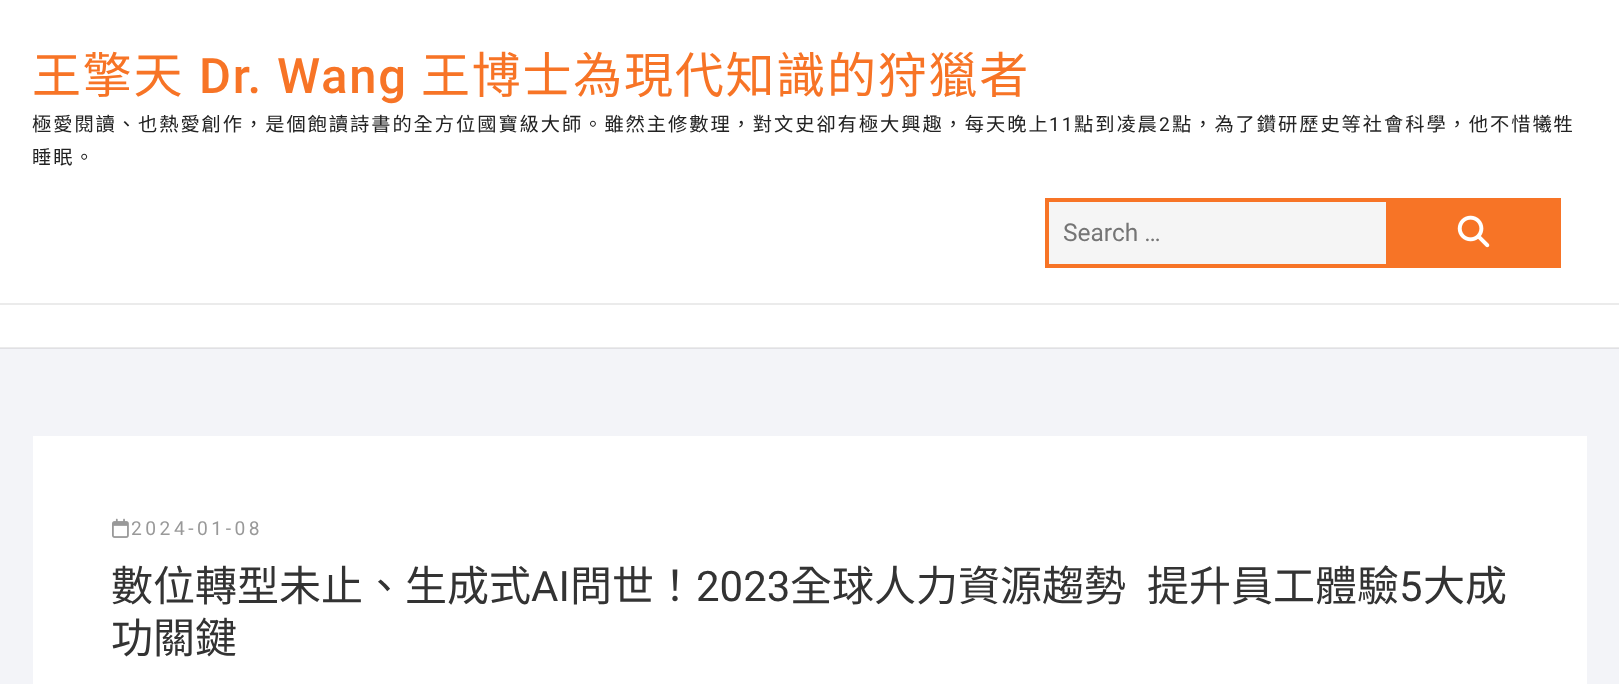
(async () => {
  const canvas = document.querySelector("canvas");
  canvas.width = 1619;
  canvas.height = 684;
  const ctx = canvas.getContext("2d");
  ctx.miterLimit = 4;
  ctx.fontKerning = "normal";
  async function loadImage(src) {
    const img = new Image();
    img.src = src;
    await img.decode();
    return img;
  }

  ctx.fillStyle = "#f3f4f8";
  ctx.fillRect(0, 0, 1619, 684);
  for (const [x, y, w, h, color] of [
    [0, 348, 1619, 1, "#e0e0e4"],
    [0, 0, 1619, 347, "#ffffff"],
    [0, 347, 1619, 1, "#ebebeb"],
    [1049, 202, 337, 62, "#f5f5f5"],
    [1045, 198, 341, 4, "#f77426"],
    [1045, 264, 341, 4, "#f77426"],
    [1045, 198, 4, 70, "#f77426"],
    [1386, 198, 175, 70, "#f77426"],
  ]) {
    ctx.fillStyle = color;
    ctx.fillRect(x, y, w, h);
  }
  ctx.drawImage(await loadImage("img/1.png"), 1457, 215, 33, 33);
  ctx.fillStyle = "#ebebeb";
  ctx.fillRect(0, 303, 1619, 2);
  ctx.fillStyle = "#ffffff";
  ctx.fillRect(33, 436, 1554, 248);
  ctx.drawImage(await loadImage("img/2.png"), 112, 518, 17, 20);
  ctx.letterSpacing = "1.75px";
  ctx.font = "49px Noto Sans CJK TC";
  ctx.fillStyle = "#f77426";
  ctx.fillText("王擎天", 32, 93);
  ctx.font = "500 49px Roboto";
  ctx.fillText("Dr. Wang", 199, 93);
  ctx.font = "49px Noto Sans CJK TC";
  ctx.fillText("王博士為現代知識的狩獵者", 421, 93);
  ctx.letterSpacing = "1.95px";
  ctx.font = "19.25px Noto Sans CJK TC";
  ctx.fillStyle = "#222222";
  ctx.fillText("極愛閱讀、也熱愛創作，是個飽讀詩書的全方位國寶級大師。雖然主修數理，對文史卻有極大興趣，每天晚上", 32, 131);
  ctx.font = "19.25px Roboto";
  ctx.fillText("11", 1049, 131);
  ctx.font = "19.25px Noto Sans CJK TC";
  ctx.fillText("點到凌晨", 1074, 131);
  ctx.font = "19.25px Roboto";
  ctx.fillText("2", 1159, 131);
  ctx.font = "19.25px Noto Sans CJK TC";
  ctx.fillText("點，為了鑽研歷史等社會科學，他不惜犧牲", 1172, 131);
  ctx.fillText("睡眠。", 32, 164);
  ctx.letterSpacing = "0px";
  ctx.font = "24.5px Roboto";
  ctx.fillStyle = "#757575";
  ctx.fillText("Search …", 1063, 241);
  ctx.letterSpacing = "3.5px";
  ctx.font = "19.25px Roboto";
  ctx.fillStyle = "#999999";
  ctx.fillText("2024-01-08", 131, 535);
  ctx.letterSpacing = "0px";
  ctx.font = "42px Noto Sans CJK TC";
  ctx.fillStyle = "#333333";
  ctx.fillText("數位轉型未止、生成式", 111, 601);
  ctx.font = "42px Roboto";
  ctx.fillText("AI", 531, 601);
  ctx.font = "42px Noto Sans CJK TC";
  ctx.fillText("問世！", 570, 601);
  ctx.font = "42px Roboto";
  ctx.fillText("2023", 696, 601);
  ctx.font = "42px Noto Sans CJK TC";
  ctx.fillText("全球人力資源趨勢", 790, 601);
  ctx.fillText("提升員工體驗", 1147, 601);
  ctx.font = "42px Roboto";
  ctx.fillText("5", 1399, 601);
  ctx.font = "42px Noto Sans CJK TC";
  ctx.fillText("大成", 1423, 601);
  ctx.fillText("功關鍵", 111, 653);
})();
